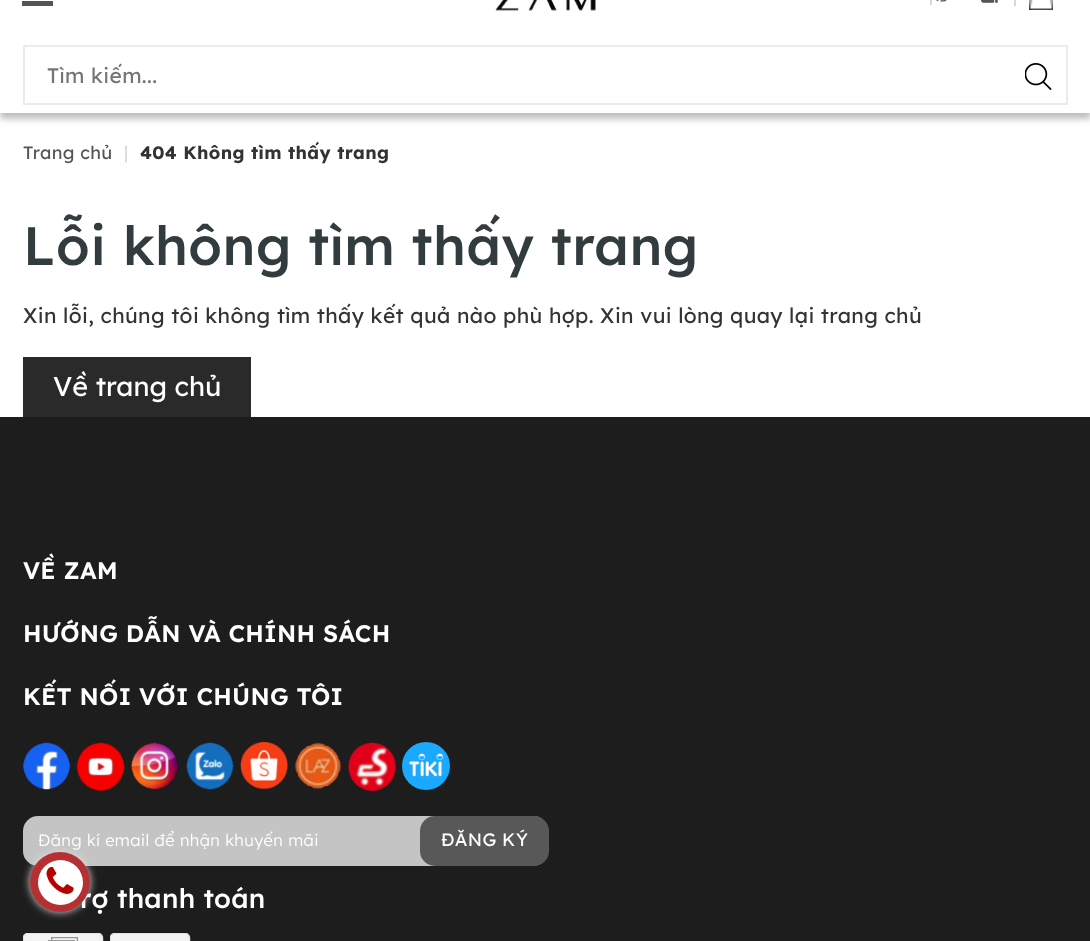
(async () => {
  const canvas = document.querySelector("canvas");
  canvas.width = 1090;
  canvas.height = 941;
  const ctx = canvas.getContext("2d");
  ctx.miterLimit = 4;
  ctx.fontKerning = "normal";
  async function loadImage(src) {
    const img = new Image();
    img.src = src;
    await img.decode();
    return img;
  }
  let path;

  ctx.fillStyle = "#ffffff";
  ctx.fillRect(0, 0, 1090, 941);
  ctx.save();
  path = new Path2D("M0 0H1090V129H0ZM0-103H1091V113H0Z");
  ctx.clip(path, "evenodd");
  ctx.fillStyle = "rgba(0, 0, 0, 0.25)";
  ctx.filter = "blur(3px)";
  ctx.beginPath();
  ctx.rect(0, -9, 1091, 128);
  ctx.fill();
  ctx.filter = "none";
  ctx.restore();
  ctx.fillStyle = "#575454";
  ctx.fillRect(22, 1, 31, 5);
  ctx.drawImage(await loadImage("img/1.png"), 495, 0, 101, 11);
  ctx.fillStyle = "#d8d8d8";
  ctx.fillRect(930, 0, 2, 5);
  ctx.drawImage(await loadImage("img/2.png"), 936, 0, 11, 2);
  ctx.fillRect(1014, 0, 2, 6);
  ctx.drawImage(await loadImage("img/3.png"), 981, 0, 17, 3);
  ctx.drawImage(await loadImage("img/4.png"), 1029, 0, 24, 10);
  ctx.strokeStyle = "#ebebeb";
  ctx.lineWidth = 2;
  ctx.strokeRect(24, 46, 1043, 58);
  ctx.drawImage(await loadImage("img/5.png"), 1025, 63, 27, 27);
  ctx.fillStyle = "#2a2a2a";
  ctx.fillRect(23, 357, 228, 60);
  ctx.fillStyle = "#1d1d1e";
  ctx.fillRect(0, 417, 1090, 524);
  ctx.drawImage(await loadImage("img/6.png"), 23, 742, 48, 48);
  ctx.drawImage(await loadImage("img/7.png"), 76, 742, 49, 50);
  ctx.drawImage(await loadImage("img/8.png"), 131, 742, 47, 48);
  ctx.drawImage(await loadImage("img/9.png"), 186, 742, 48, 48);
  ctx.drawImage(await loadImage("img/10.png"), 240, 742, 48, 48);
  ctx.drawImage(await loadImage("img/11.png"), 294, 742, 48, 48);
  ctx.drawImage(await loadImage("img/12.png"), 348, 742, 48, 50);
  ctx.drawImage(await loadImage("img/13.png"), 402, 742, 48, 48);
  ctx.fillStyle = "#c4c4c4";
  ctx.beginPath();
  ctx.roundRect(23, 816, 525, 50, 15);
  ctx.fill();
  ctx.fillStyle = "#585858";
  ctx.beginPath();
  ctx.roundRect(420, 816, 129, 50, 15);
  ctx.fill();
  ctx.drawImage(await loadImage("img/14.png"), 23, 933, 81, 8);
  ctx.drawImage(await loadImage("img/15.png"), 110, 933, 81, 8);
  ctx.fillStyle = "#dddddd";
  ctx.filter = "blur(4px)";
  ctx.beginPath();
  ctx.roundRect(30, 852, 60, 60, 30);
  ctx.fill();
  ctx.filter = "none";
  ctx.letterSpacing = "0.38px";
  ctx.font = "21px Lexend";
  ctx.fillStyle = "#757575";
  ctx.fillText("Tìm kiếm...", 47, 83);
  ctx.font = "18px Lexend";
  ctx.fillStyle = "#575454";
  ctx.fillText("Trang chủ", 23, 159);
  ctx.fillStyle = "#d8d8d8";
  ctx.fillText("|", 124, 159);
  ctx.font = "bold 18px Lexend";
  ctx.fillStyle = "#333333";
  ctx.fillText("404 Không tìm thấy trang", 140, 159);
  ctx.letterSpacing = "0.5px";
  ctx.font = "500 54px Lexend";
  ctx.fillStyle = "#323c3f";
  ctx.fillText("Lỗi không tìm thấy trang", 23, 265);
  ctx.letterSpacing = "0.38px";
  ctx.font = "21px Lexend";
  ctx.fillStyle = "#333333";
  ctx.fillText("Xin lỗi, chúng tôi không tìm thấy kết quả nào phù hợp. Xin vui lòng quay lại trang chủ", 23, 323);
  ctx.letterSpacing = "0px";
  ctx.font = "27px Lexend";
  ctx.fillStyle = "#ffffff";
  ctx.fillText("Về trang chủ", 53, 396);
  ctx.letterSpacing = "0.25px";
  ctx.font = "600 24px Lexend";
  for (const [text, x, y] of [
    ["VỀ ZAM", 23, 579],
    ["HƯỚNG DẪN VÀ CHÍNH SÁCH", 23, 642],
    ["KẾT NỐI VỚI CHÚNG TÔI", 23, 705],
  ]) {
    ctx.fillText(text, x, y);
  }
  ctx.letterSpacing = "0.38px";
  ctx.font = "300 16.5px Lexend";
  ctx.fillText("Đăng kí email để nhận khuyến mãi", 38, 846);
  ctx.font = "18px Lexend";
  ctx.fillText("ĐĂNG KÝ", 441, 846);
  ctx.letterSpacing = "0.25px";
  ctx.font = "500 27px Lexend";
  ctx.fillText("rợ thanh toán", 80, 908);
  ctx.fillStyle = "#b53032";
  ctx.beginPath();
  ctx.arc(60, 882, 30, 0, Math.PI * 2);
  ctx.fill();
  ctx.fillStyle = "#ffffff";
  ctx.beginPath();
  ctx.arc(60.5, 882.5, 22.5, 0, Math.PI * 2);
  ctx.fill();
  ctx.drawImage(await loadImage("img/16.png"), 46, 866, 28, 28);
})();
